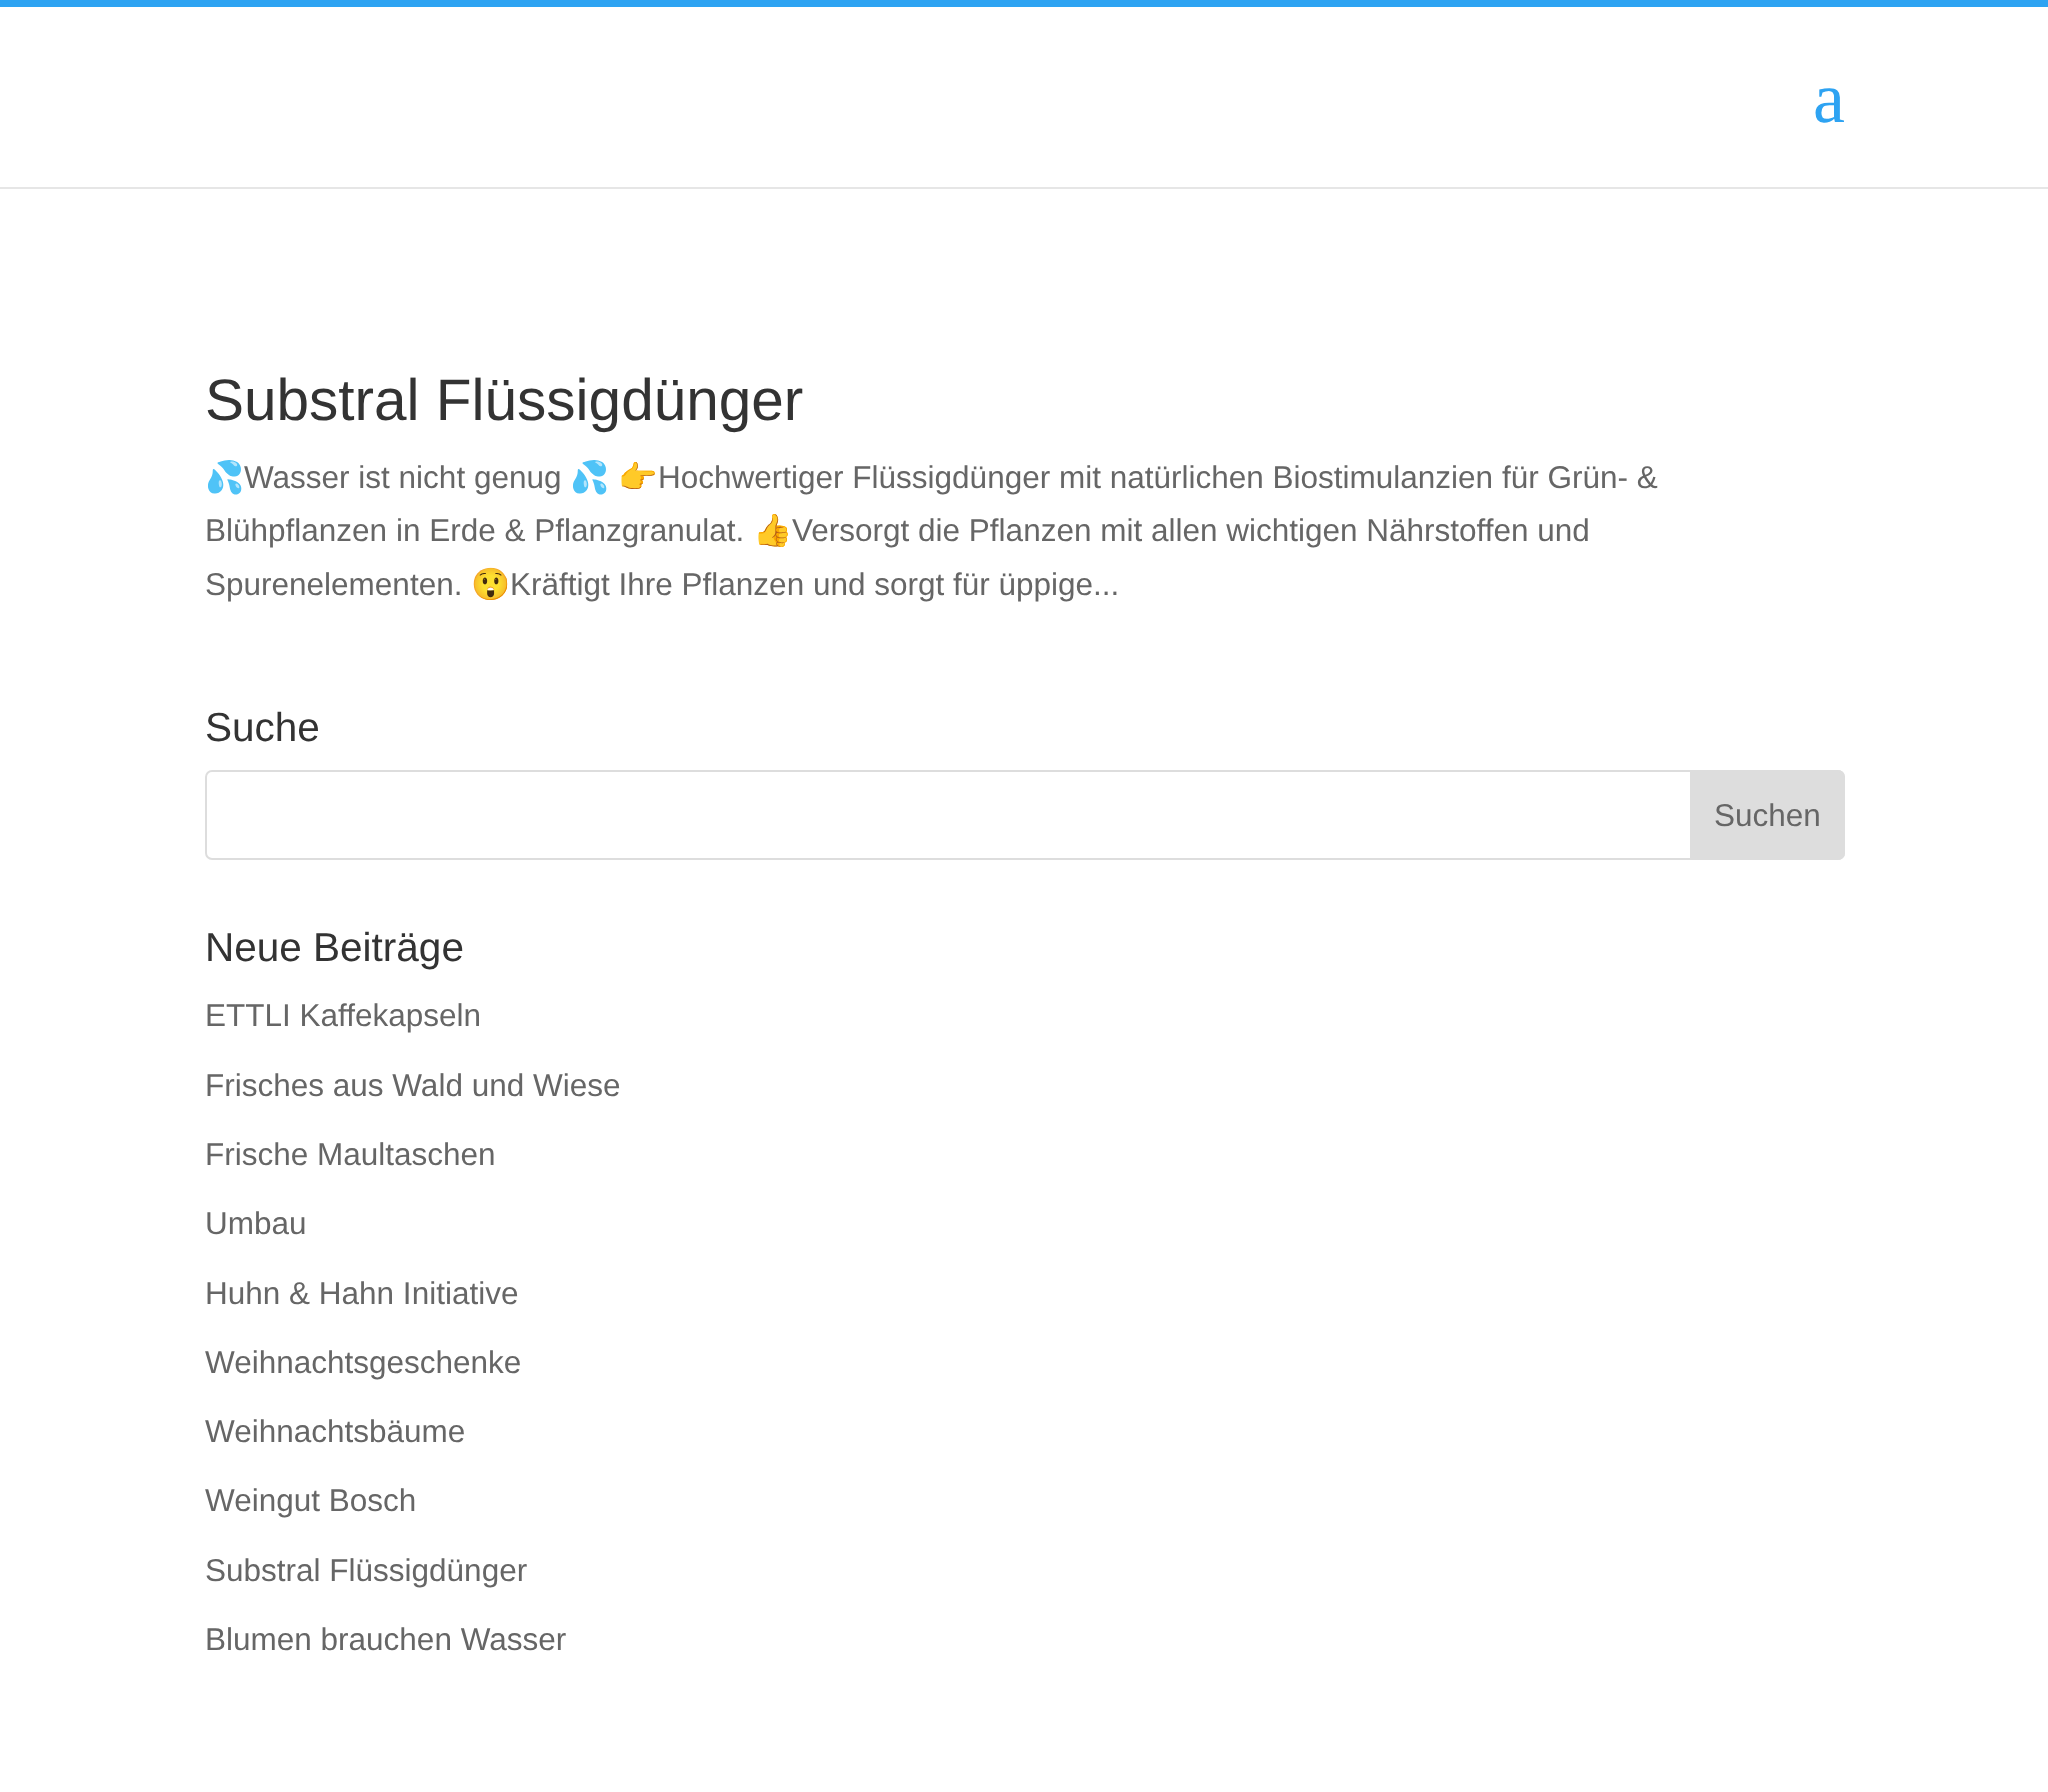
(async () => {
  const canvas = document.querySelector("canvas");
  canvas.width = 2048;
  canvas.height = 1792;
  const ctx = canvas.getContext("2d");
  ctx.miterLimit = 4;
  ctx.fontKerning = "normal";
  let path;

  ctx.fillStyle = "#ffffff";
  ctx.fillRect(0, 0, 2048, 1792);
  ctx.fillStyle = "#2ea3f2";
  ctx.fillRect(0, 0, 2048, 7);
  ctx.fillStyle = "#e6e6e6";
  path = new Path2D("M0 187V189H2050V9V187Z");
  ctx.fill(path);
  ctx.beginPath();
  ctx.roundRect(206, 771, 1638, 88, 6);
  ctx.strokeStyle = "#dddddd";
  ctx.lineWidth = 2;
  ctx.stroke();
  ctx.fillStyle = "#dddddd";
  ctx.beginPath();
  ctx.roundRect(1691, 771, 153, 88, [0, 6, 6, 0]);
  ctx.fill();
  ctx.stroke();
  ctx.font = "72px Liberation Serif";
  ctx.fillStyle = "#2ea3f2";
  ctx.fillText("a", 1813, 122);
  ctx.font = "58.5px Liberation Sans";
  ctx.fillStyle = "#333333";
  ctx.fillText("Substral Flüssigdünger", 205, 420);
  ctx.font = "31.5px Noto Color Emoji";
  ctx.fillStyle = "#666666";
  ctx.fillText("💦", 205, 488);
  ctx.font = "31.5px Liberation Sans";
  ctx.fillText("Wasser ist nicht genug", 244, 488);
  ctx.font = "31.5px Noto Color Emoji";
  ctx.fillText("💦", 570, 488);
  ctx.fillText("👉", 618, 488);
  ctx.font = "31.5px Liberation Sans";
  ctx.fillText("Hochwertiger Flüssigdünger mit natürlichen Biostimulanzien für Grün- &", 658, 488);
  ctx.fillText("Blühpflanzen in Erde & Pflanzgranulat.", 205, 541);
  ctx.font = "31.5px Noto Color Emoji";
  ctx.fillText("👍", 753, 541);
  ctx.font = "31.5px Liberation Sans";
  ctx.fillText("Versorgt die Pflanzen mit allen wichtigen Nährstoffen und", 792, 541);
  ctx.fillText("Spurenelementen.", 205, 595);
  ctx.font = "31.5px Noto Color Emoji";
  ctx.fillText("😲", 471, 595);
  ctx.font = "31.5px Liberation Sans";
  ctx.fillText("Kräftigt Ihre Pflanzen und sorgt für üppige...", 510, 595);
  ctx.font = "40.5px Liberation Sans";
  ctx.fillStyle = "#333333";
  ctx.fillText("Suche", 205, 741);
  ctx.font = "31.5px Liberation Sans";
  ctx.fillStyle = "#666666";
  ctx.fillText("Suchen", 1714, 826);
  ctx.font = "40.5px Liberation Sans";
  ctx.fillStyle = "#333333";
  ctx.fillText("Neue Beiträge", 205, 961);
  ctx.font = "31.5px Liberation Sans";
  ctx.fillStyle = "#666666";
  for (const [text, x, y] of [
    ["ETTLI Kaffekapseln", 205, 1026],
    ["Frisches aus Wald und Wiese", 205, 1096],
    ["Frische Maultaschen", 205, 1165],
    ["Umbau", 205, 1234],
    ["Huhn & Hahn Initiative", 205, 1304],
    ["Weihnachtsgeschenke", 205, 1373],
    ["Weihnachtsbäume", 205, 1442],
    ["Weingut Bosch", 205, 1511],
    ["Substral Flüssigdünger", 205, 1581],
    ["Blumen brauchen Wasser", 205, 1650],
  ]) {
    ctx.fillText(text, x, y);
  }
})();
